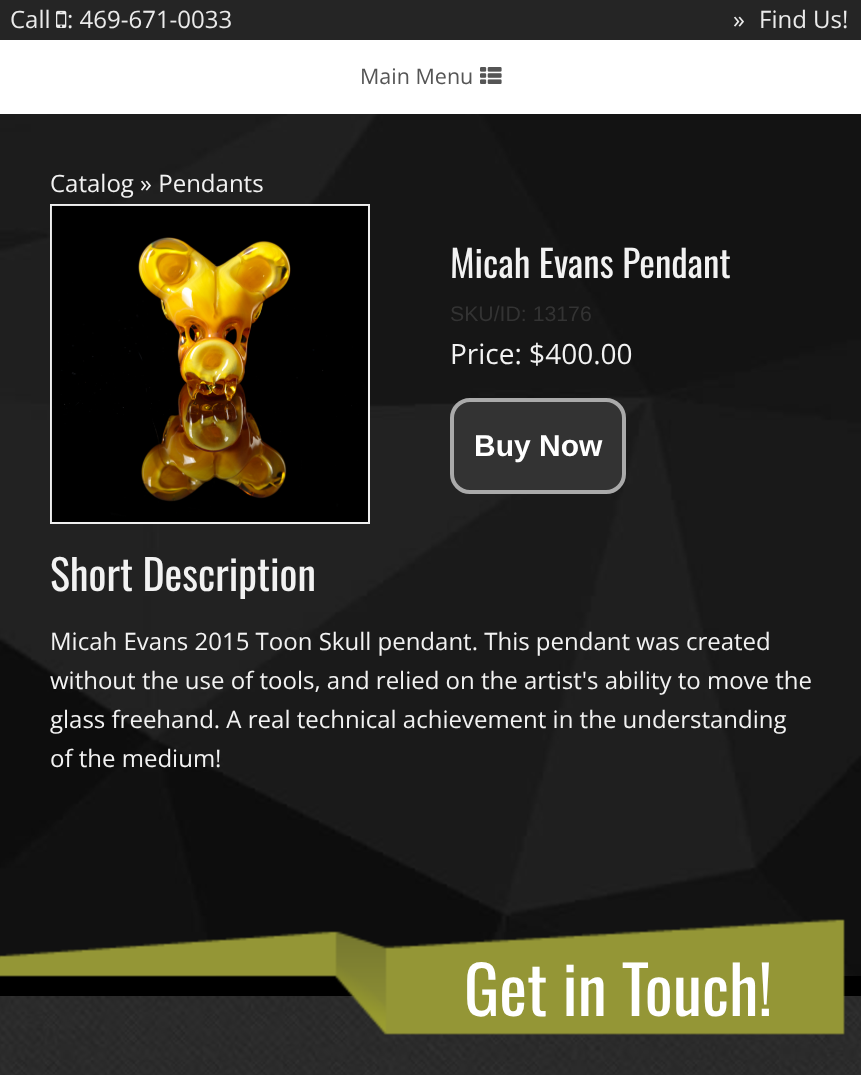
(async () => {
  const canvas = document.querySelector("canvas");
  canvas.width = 861;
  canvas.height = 1075;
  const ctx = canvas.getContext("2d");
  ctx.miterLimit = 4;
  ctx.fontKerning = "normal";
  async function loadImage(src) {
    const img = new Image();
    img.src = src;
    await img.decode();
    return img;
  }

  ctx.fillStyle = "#ffffff";
  ctx.fillRect(0, 0, 861, 1075);
  ctx.fillStyle = "#252525";
  ctx.fillRect(0, 0, 861, 40);
  ctx.drawImage(await loadImage("img/1.png"), 56, 10, 11, 18);
  ctx.drawImage(await loadImage("img/2.png"), 480, 67, 22, 17);
  ctx.drawImage(await loadImage("img/3.png"), 0, 114, 861, 862);
  ctx.strokeStyle = "#efefef";
  ctx.lineWidth = 2;
  ctx.strokeRect(51, 205, 318, 318);
  ctx.drawImage(await loadImage("img/4.png"), 51, 205, 317, 317);
  ctx.fillStyle = "#333333";
  ctx.beginPath();
  ctx.roundRect(452, 400, 172, 92, 18);
  ctx.fill();
  ctx.strokeStyle = "#aaaaaa";
  ctx.lineWidth = 4;
  ctx.stroke();
  ctx.drawImage(await loadImage("img/5.png"), 0, 996, 861, 79);
  ctx.fillStyle = "#000000";
  ctx.fillRect(0, 976, 861, 20);
  ctx.drawImage(await loadImage("img/6.png"), 0, 919, 845, 116);
  ctx.font = "24px Open Sans";
  ctx.fillStyle = "#ebebeb";
  for (const [text, x, y] of [
    ["Call", 10, 28],
    [": 469-671-0033", 67, 28],
    ["»", 733, 28],
    ["Find Us!", 759, 28],
  ]) {
    ctx.fillText(text, x, y);
  }
  ctx.font = "21.5px Open Sans";
  ctx.fillStyle = "#555555";
  ctx.fillText("Main Menu", 360, 84);
  ctx.font = "24px Open Sans";
  ctx.fillStyle = "#f2f2f2";
  ctx.fillText("Catalog » Pendants", 50, 192);
  ctx.font = "37.25px Oswald";
  ctx.fillText("Micah Evans Pendant", 450, 278);
  ctx.font = "21.25px Liberation Sans";
  ctx.fillStyle = "#333333";
  ctx.fillText("SKU/ID: 13176", 450, 321);
  ctx.font = "28px Open Sans";
  ctx.fillStyle = "#f2f2f2";
  ctx.fillText("Price: $400.00", 450, 364);
  ctx.font = "bold 30px Liberation Sans";
  ctx.fillStyle = "#ffffff";
  ctx.fillText("Buy Now", 474, 456);
  ctx.font = "42px Oswald";
  ctx.fillStyle = "#f2f2f2";
  ctx.fillText("Short Description", 50, 591);
  ctx.font = "24px Open Sans";
  for (const [text, x, y] of [
    ["Micah Evans 2015 Toon Skull pendant. This pendant was created", 50, 650],
    ["without the use of tools, and relied on the artist's ability to move the", 50, 689],
    ["glass freehand. A real technical achievement in the understanding", 50, 728],
    ["of the medium!", 50, 767],
  ]) {
    ctx.fillText(text, x, y);
  }
  ctx.font = "66px Oswald";
  ctx.fillStyle = "#ffffff";
  ctx.fillText("Get in Touch!", 464, 1016);
})();
